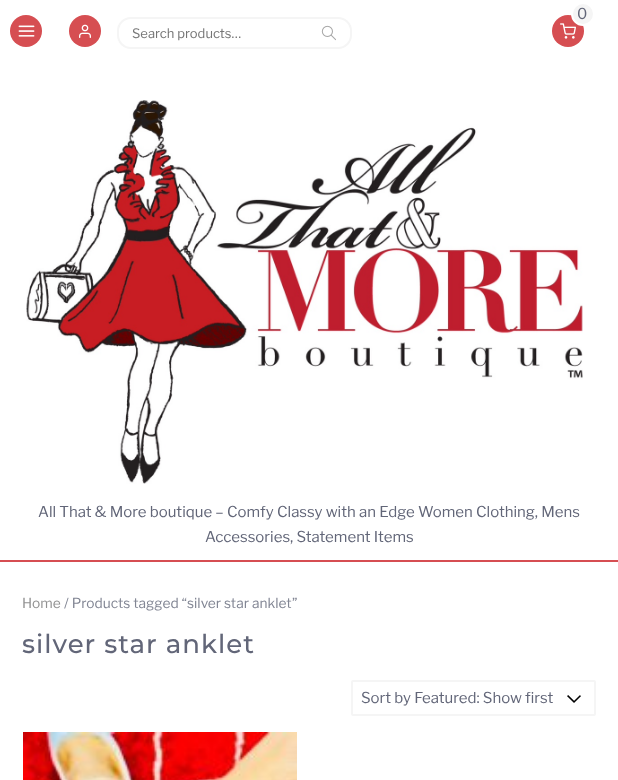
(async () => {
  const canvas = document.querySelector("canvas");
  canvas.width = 618;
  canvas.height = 780;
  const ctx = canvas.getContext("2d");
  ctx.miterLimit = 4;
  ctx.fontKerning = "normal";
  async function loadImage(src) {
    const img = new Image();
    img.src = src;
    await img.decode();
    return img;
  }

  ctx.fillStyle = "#ffffff";
  ctx.fillRect(0, 0, 618, 780);
  ctx.fillStyle = "#d64e52";
  ctx.beginPath();
  ctx.arc(568, 31, 16, 0, Math.PI * 2);
  ctx.fill();
  ctx.drawImage(await loadImage("img/1.png"), 560, 23, 16, 16);
  ctx.fillStyle = "#f5f5f5";
  ctx.beginPath();
  ctx.arc(583, 14, 11, 0, Math.PI * 2);
  ctx.fill();
  ctx.strokeStyle = "#ffffff";
  ctx.lineWidth = 2;
  ctx.stroke();
  ctx.fillStyle = "#d64e52";
  ctx.beginPath();
  ctx.arc(85, 31, 16, 0, Math.PI * 2);
  ctx.fill();
  ctx.drawImage(await loadImage("img/2.png"), 79, 24, 12, 14);
  ctx.beginPath();
  ctx.roundRect(118, 18, 233, 30, 13);
  ctx.strokeStyle = "#f5f5f5";
  ctx.stroke();
  ctx.drawImage(await loadImage("img/3.png"), 321, 25, 15, 16);
  ctx.drawImage(await loadImage("img/4.png"), 26, 100, 557, 384);
  ctx.fillRect(0, 560, 618, 2);
  ctx.beginPath();
  ctx.arc(26, 31, 16, 0, Math.PI * 2);
  ctx.fill();
  ctx.drawImage(await loadImage("img/5.png"), 18, 25, 17, 12);
  ctx.drawImage(await loadImage("img/6.png"), 567, 695, 14, 8);
  ctx.beginPath();
  ctx.roundRect(352, 681, 243, 34, 1);
  ctx.stroke();
  ctx.drawImage(await loadImage("img/7.png"), 23, 732, 274, 48);
  ctx.font = "15px Libre Franklin";
  ctx.fillStyle = "#626678";
  ctx.fillText("0", 577, 19);
  ctx.font = "13px Libre Franklin";
  ctx.fillStyle = "#757575";
  ctx.fillText("Search products…", 132, 38);
  ctx.font = "15px Libre Franklin";
  ctx.fillStyle = "#626678";
  ctx.fillText("All That & More boutique – Comfy Classy with an Edge Women Clothing, Mens", 38, 517);
  ctx.fillText("Accessories, Statement Items", 205, 542);
  ctx.font = "13.75px Libre Franklin";
  ctx.fillStyle = "#919191";
  ctx.fillText("Home", 22, 608);
  ctx.fillStyle = "#818593";
  ctx.fillText("/ Products tagged “silver star anklet”", 64, 608);
  ctx.letterSpacing = "1px";
  ctx.font = "500 26px Montserrat";
  ctx.fillStyle = "#626678";
  ctx.fillText("silver star anklet", 22, 653);
  ctx.letterSpacing = "0px";
  ctx.font = "15px Libre Franklin";
  ctx.fillText("Sort by Featured: Show first", 361, 703);
})();
